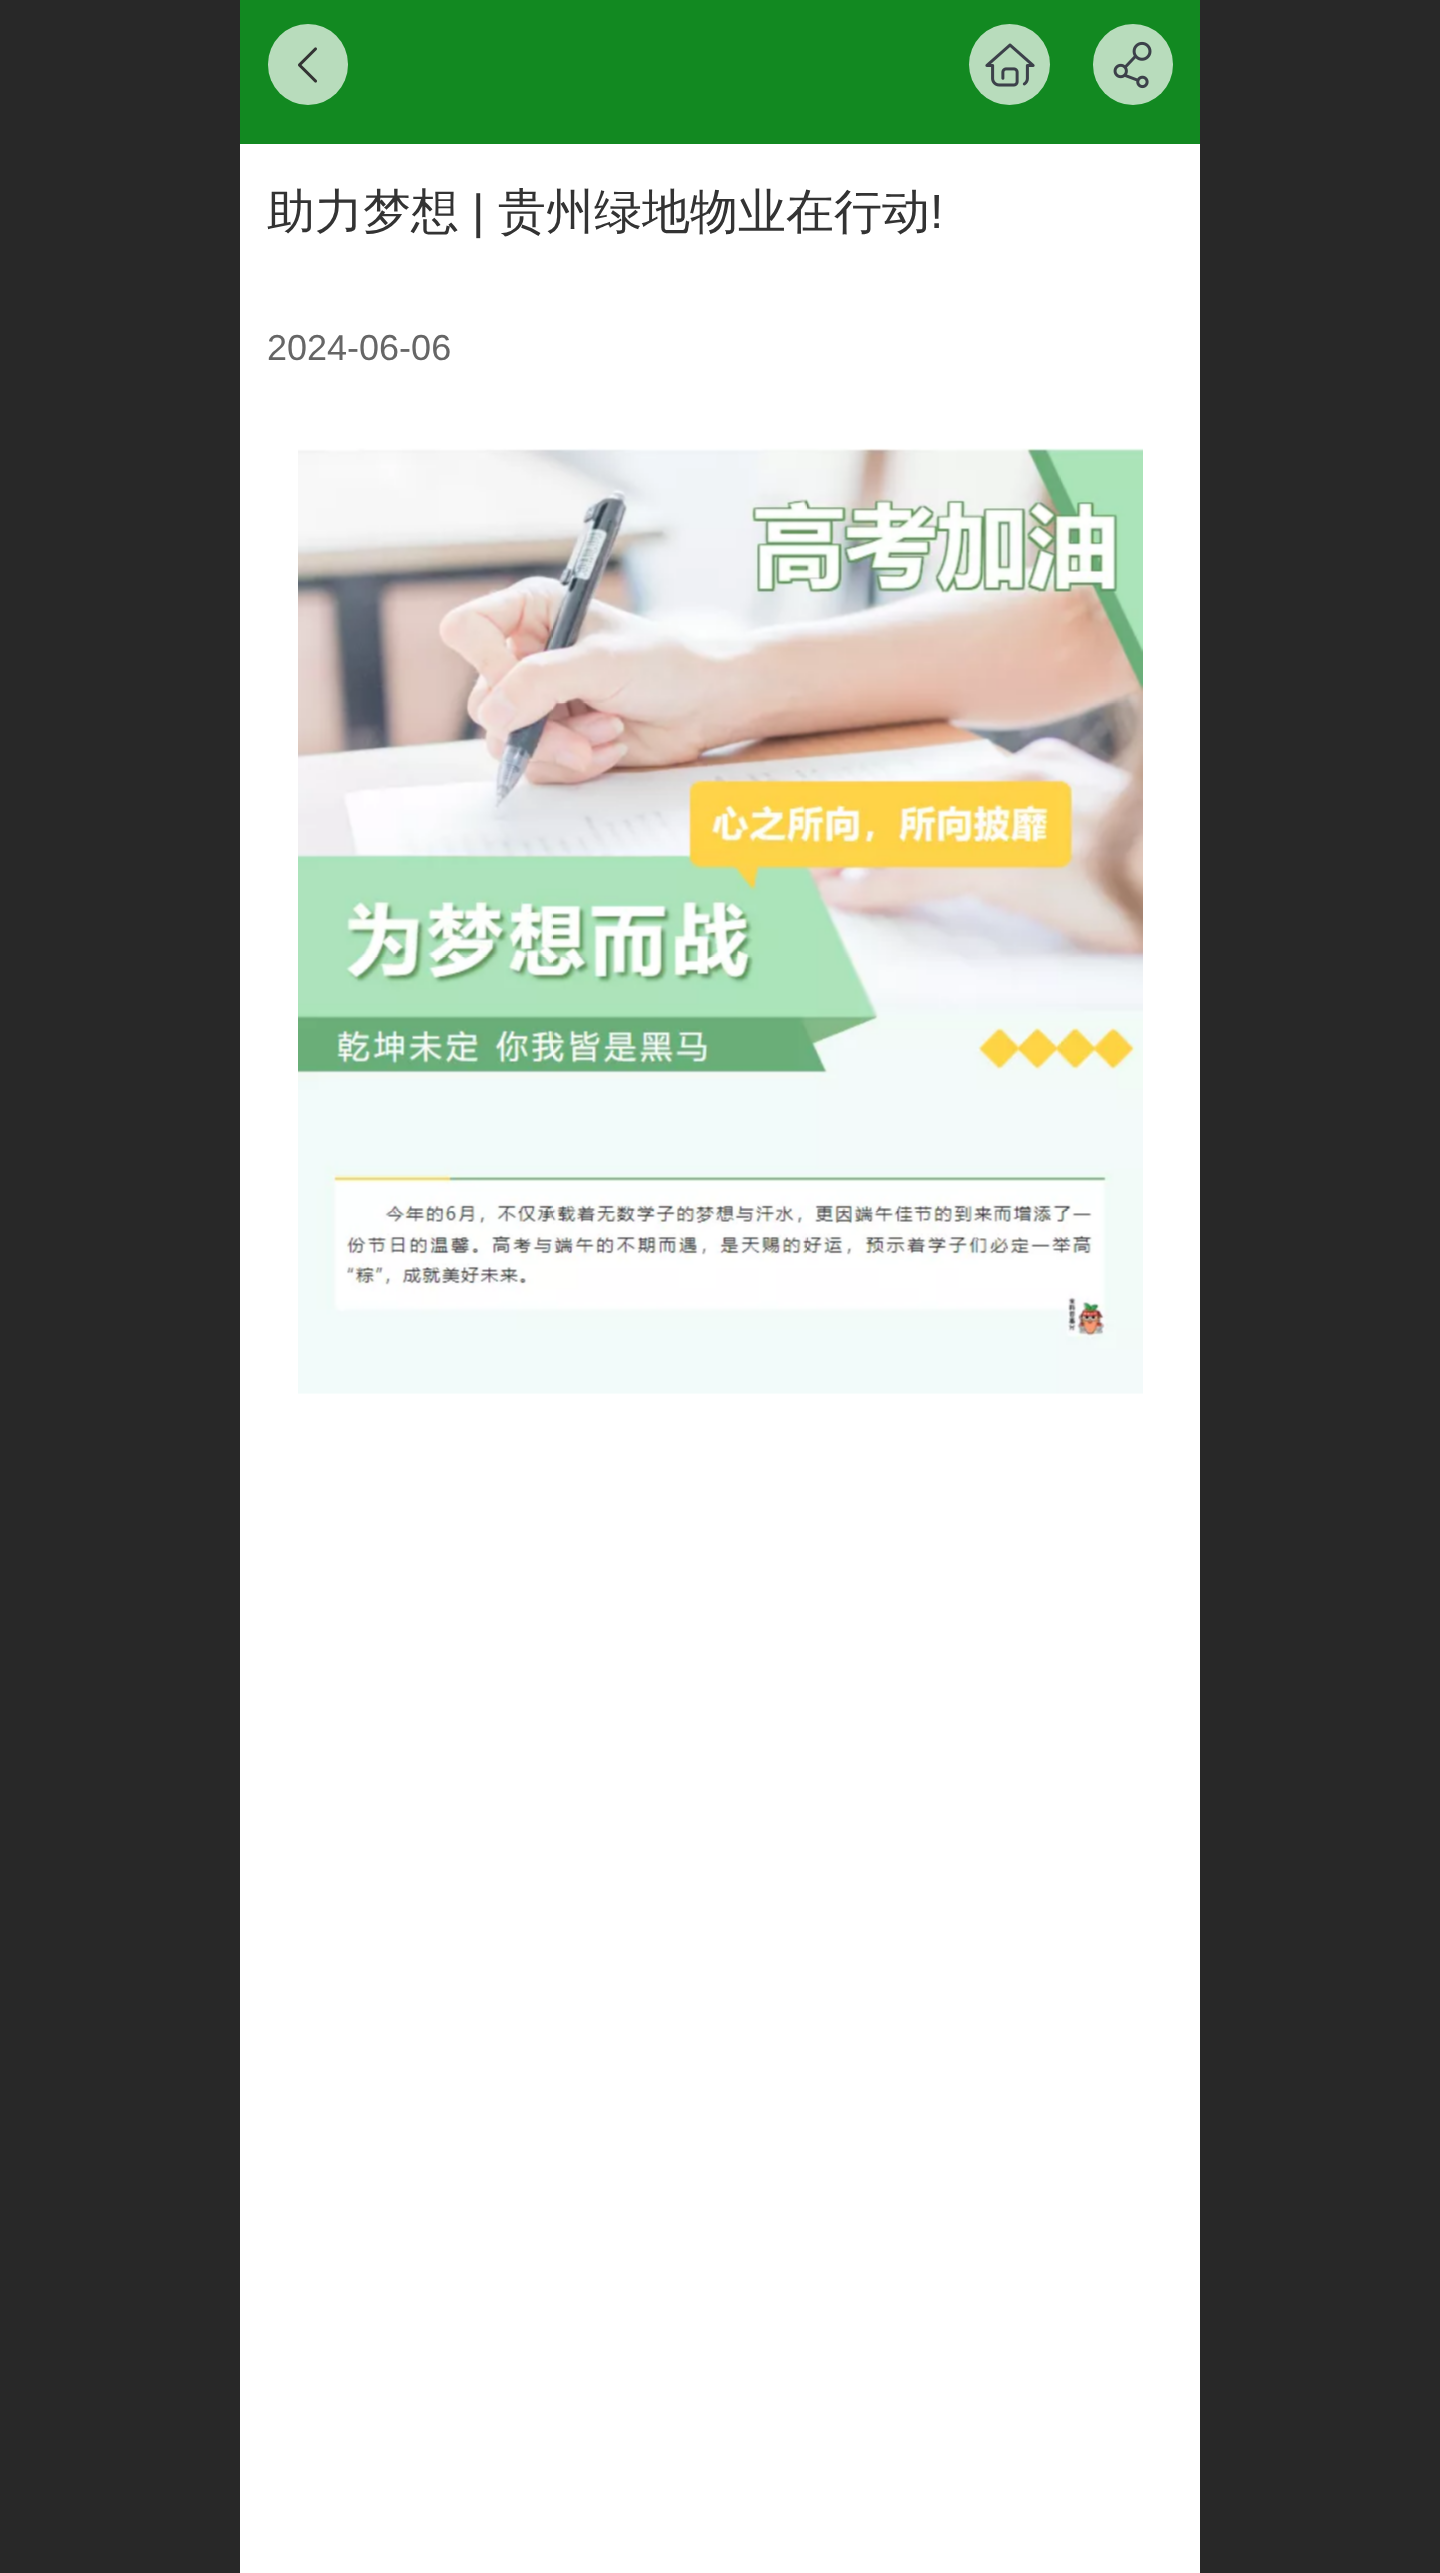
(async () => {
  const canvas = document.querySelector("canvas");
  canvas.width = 1440;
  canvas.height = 2573;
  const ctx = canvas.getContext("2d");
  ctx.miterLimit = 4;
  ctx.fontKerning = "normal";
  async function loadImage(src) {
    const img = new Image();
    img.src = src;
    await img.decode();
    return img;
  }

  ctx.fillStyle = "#ffffff";
  ctx.fillRect(0, 0, 1440, 2573);
  ctx.fillStyle = "#282828";
  ctx.fillRect(0, 0, 240, 2573);
  ctx.fillStyle = "#128921";
  ctx.fillRect(240, 0, 960, 144);
  ctx.fillStyle = "#b8dcbc";
  ctx.beginPath();
  ctx.roundRect(268, 24, 80, 81, 40);
  ctx.fill();
  ctx.drawImage(await loadImage("img/1.png"), 298, 47, 19, 36);
  ctx.beginPath();
  ctx.arc(1009.5, 64.5, 40.5, 0, Math.PI * 2);
  ctx.fill();
  ctx.drawImage(await loadImage("img/2.png"), 985, 43, 50, 44);
  ctx.beginPath();
  ctx.roundRect(1093, 24, 80, 81, 40);
  ctx.fill();
  ctx.drawImage(await loadImage("img/3.png"), 1113, 41, 39, 48);
  ctx.drawImage(await loadImage("img/4.png"), 298, 448, 845, 946);
  ctx.fillStyle = "#282828";
  ctx.fillRect(1200, 0, 240, 2573);
  ctx.font = "500 48px WenQuanYi Zen Hei";
  ctx.fillStyle = "#333333";
  ctx.fillText("助力梦想", 267, 228);
  ctx.font = "48px Liberation Sans";
  ctx.fillText("|", 472, 228);
  ctx.font = "500 48px WenQuanYi Zen Hei";
  ctx.fillText("贵州绿地物业在行动", 498, 228);
  ctx.font = "48px Liberation Sans";
  ctx.fillText("!", 930, 228);
  ctx.font = "36px Liberation Sans";
  ctx.fillStyle = "#666666";
  ctx.fillText("2024-06-06", 267, 360);
})();
